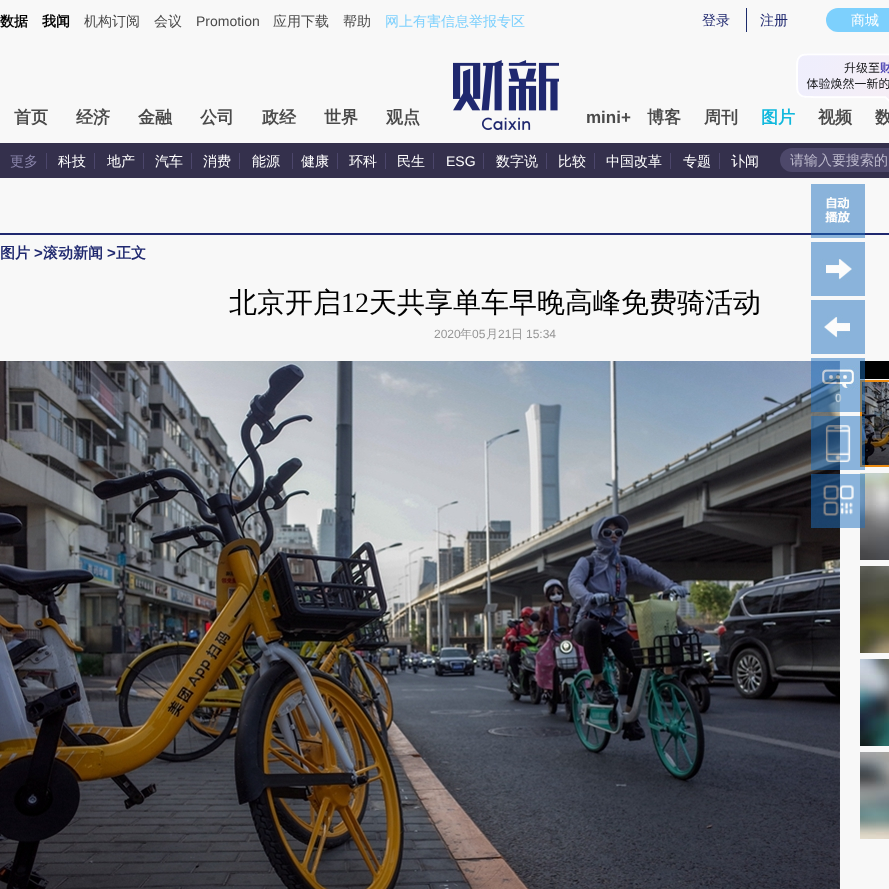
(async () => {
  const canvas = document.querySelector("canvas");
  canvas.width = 889;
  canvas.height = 889;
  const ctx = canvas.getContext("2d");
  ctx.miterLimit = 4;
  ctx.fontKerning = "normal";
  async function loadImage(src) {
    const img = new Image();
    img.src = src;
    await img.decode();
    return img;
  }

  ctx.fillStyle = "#f8f8f8";
  ctx.fillRect(0, 0, 889, 889);
  ctx.fillStyle = "#1c2b6b";
  ctx.fillRect(746, 8, 1, 24);
  ctx.fillStyle = "#7dd0fd";
  ctx.beginPath();
  ctx.roundRect(826, 8, 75, 24, 12);
  ctx.fill();
  ctx.drawImage(await loadImage("img/1.png"), 453, 60, 106, 70);
  for (const [x, y, w, h, color] of [
    [0, 143, 889, 35, "#34304c"],
    [46, 153, 1, 16, "#4c466b"],
    [94, 153, 1, 16, "#4c466b"],
    [143, 153, 1, 16, "#4c466b"],
    [191, 153, 1, 16, "#4c466b"],
    [239, 153, 1, 16, "#4c466b"],
    [292, 153, 1, 16, "#4c466b"],
    [337, 153, 1, 16, "#4c466b"],
    [385, 153, 1, 16, "#4c466b"],
    [433, 153, 1, 16, "#4c466b"],
    [483, 153, 1, 16, "#4c466b"],
    [546, 153, 1, 16, "#4c466b"],
    [594, 153, 1, 16, "#4c466b"],
    [670, 153, 1, 16, "#4c466b"],
    [719, 153, 1, 16, "#4c466b"],
  ]) {
    ctx.fillStyle = color;
    ctx.fillRect(x, y, w, h);
  }
  ctx.fillStyle = "#4d486a";
  ctx.beginPath();
  ctx.roundRect(780, 148, 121, 24, 12);
  ctx.fill();
  ctx.drawImage(await loadImage("img/2.png"), 796, 53, 93, 49);
  ctx.fillStyle = "#1f286f";
  ctx.fillRect(0, 233, 889, 2);
  ctx.drawImage(await loadImage("img/3.png"), 0, 361, 840, 528);
  ctx.fillStyle = "#000000";
  ctx.fillRect(860, 361, 29, 18);
  ctx.strokeStyle = "#ea8b13";
  ctx.lineWidth = 2;
  ctx.strokeRect(861, 381, 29, 85);
  ctx.drawImage(await loadImage("img/4.png"), 862, 382, 27, 83);
  ctx.drawImage(await loadImage("img/5.png"), 860, 473, 29, 87);
  ctx.drawImage(await loadImage("img/6.png"), 860, 566, 29, 87);
  ctx.drawImage(await loadImage("img/7.png"), 860, 659, 29, 87);
  ctx.drawImage(await loadImage("img/8.png"), 860, 752, 29, 87);
  ctx.drawImage(await loadImage("img/9.png"), 811, 184, 54, 54);
  ctx.drawImage(await loadImage("img/10.png"), 811, 242, 54, 54);
  ctx.drawImage(await loadImage("img/11.png"), 811, 300, 54, 54);
  ctx.drawImage(await loadImage("img/12.png"), 811, 358, 54, 54);
  ctx.drawImage(await loadImage("img/13.png"), 811, 416, 54, 54);
  ctx.drawImage(await loadImage("img/14.png"), 811, 474, 54, 54);
  ctx.font = "bold 14px WenQuanYi Zen Hei";
  ctx.fillText("数据", 0, 26);
  ctx.fillText("我闻", 42, 26);
  ctx.font = "500 14px WenQuanYi Zen Hei";
  ctx.fillStyle = "#4a4a4a";
  ctx.fillText("机构订阅", 84, 26);
  ctx.fillText("会议", 154, 26);
  ctx.font = "14px Liberation Sans";
  ctx.fillText("Promotion", 196, 26);
  ctx.font = "500 14px WenQuanYi Zen Hei";
  ctx.fillText("应用下载", 273, 26);
  ctx.fillText("帮助", 343, 26);
  ctx.fillStyle = "#7dd0fd";
  ctx.fillText("网上有害信息举报专区", 385, 26);
  ctx.fillStyle = "#1f286f";
  ctx.fillText("登录", 702, 25);
  ctx.fillText("注册", 760, 25);
  ctx.fillStyle = "#ffffff";
  ctx.fillText("商城", 851, 25);
  ctx.font = "bold 17px WenQuanYi Zen Hei";
  ctx.fillStyle = "#4a4a4a";
  for (const [text, x, y] of [
    ["首页", 14, 123],
    ["经济", 76, 123],
    ["金融", 138, 123],
    ["公司", 200, 123],
    ["政经", 262, 123],
    ["世界", 324, 123],
    ["观点", 386, 123],
  ]) {
    ctx.fillText(text, x, y);
  }
  ctx.font = "bold 17px Liberation Sans";
  ctx.fillText("mini+", 586, 123);
  ctx.font = "bold 17px WenQuanYi Zen Hei";
  ctx.fillText("博客", 647, 123);
  ctx.fillText("周刊", 704, 123);
  ctx.fillStyle = "#10b8dd";
  ctx.fillText("图片", 761, 123);
  ctx.fillStyle = "#4a4a4a";
  ctx.fillText("视频", 818, 123);
  ctx.fillText("数", 875, 123);
  ctx.font = "500 14px WenQuanYi Zen Hei";
  ctx.fillStyle = "#8984aa";
  ctx.fillText("更多", 10, 166);
  ctx.fillStyle = "#ffffff";
  for (const [text, x, y] of [
    ["科技", 58, 166],
    ["地产", 107, 166],
    ["汽车", 155, 166],
    ["消费", 203, 166],
    ["能源", 252, 166],
    ["健康", 301, 166],
    ["环科", 349, 166],
    ["民生", 397, 166],
  ]) {
    ctx.fillText(text, x, y);
  }
  ctx.font = "14px Liberation Sans";
  ctx.fillText("ESG", 446, 166);
  ctx.font = "500 14px WenQuanYi Zen Hei";
  for (const [text, x, y] of [
    ["数字说", 496, 166],
    ["比较", 558, 166],
    ["中国改革", 606, 166],
    ["专题", 683, 166],
    ["讣闻", 731, 166],
  ]) {
    ctx.fillText(text, x, y);
  }
  ctx.fillStyle = "#bbb8cb";
  ctx.fillText("请输入要搜索的", 790, 165);
  ctx.font = "bold 15px WenQuanYi Zen Hei";
  ctx.fillStyle = "#1f286f";
  ctx.fillText("图片", 0, 258);
  ctx.font = "bold 15px Liberation Sans";
  ctx.fillText(">", 34, 258);
  ctx.font = "bold 15px WenQuanYi Zen Hei";
  ctx.fillText("滚动新闻", 43, 258);
  ctx.font = "bold 15px Liberation Sans";
  ctx.fillText(">", 107, 258);
  ctx.font = "bold 15px WenQuanYi Zen Hei";
  ctx.fillText("正文", 116, 258);
  ctx.font = "500 28px WenQuanYi Zen Hei";
  ctx.fillStyle = "#000000";
  ctx.fillText("北京开启", 229, 312);
  ctx.font = "28px Liberation Serif";
  ctx.fillText("12", 341, 312);
  ctx.font = "500 28px WenQuanYi Zen Hei";
  ctx.fillText("天共享单车早晚高峰免费骑活动", 369, 312);
  ctx.font = "12px Liberation Sans";
  ctx.fillStyle = "#969696";
  ctx.fillText("2020", 434, 338);
  ctx.font = "500 12px WenQuanYi Zen Hei";
  ctx.fillText("年", 460, 338);
  ctx.font = "12px Liberation Sans";
  ctx.fillText("05", 472, 338);
  ctx.font = "500 12px WenQuanYi Zen Hei";
  ctx.fillText("月", 486, 338);
  ctx.font = "12px Liberation Sans";
  ctx.fillText("21", 498, 338);
  ctx.font = "500 12px WenQuanYi Zen Hei";
  ctx.fillText("日", 511, 338);
  ctx.font = "12px Liberation Sans";
  ctx.fillText("15:34", 526, 338);
  ctx.font = "bold 12px Liberation Sans";
  ctx.fillStyle = "#b8cad8";
  ctx.fillText("0", 835, 402);
})();
